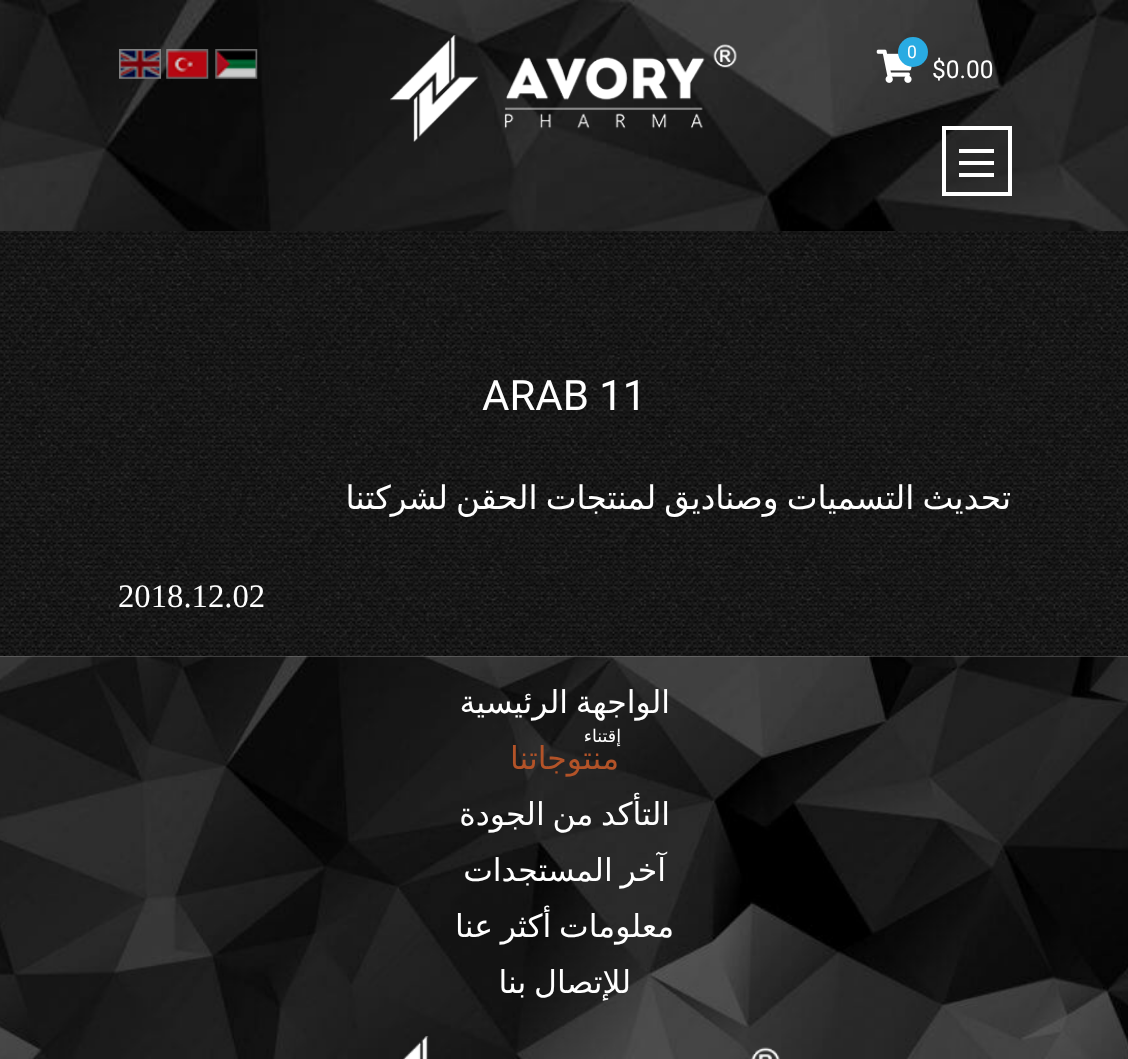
(async () => {
  const canvas = document.querySelector("canvas");
  canvas.width = 1128;
  canvas.height = 1059;
  const ctx = canvas.getContext("2d");
  ctx.miterLimit = 4;
  ctx.fontKerning = "normal";
  async function loadImage(src) {
    const img = new Image();
    img.src = src;
    await img.decode();
    return img;
  }

  ctx.fillStyle = "#ffffff";
  ctx.fillRect(0, 0, 1128, 1059);
  ctx.drawImage(await loadImage("img/1.png"), 0, 0, 1128, 231);
  ctx.drawImage(await loadImage("img/2.png"), 876, 49, 36, 34);
  ctx.fillStyle = "#29abe2";
  ctx.beginPath();
  ctx.arc(913, 52, 15, 0, Math.PI * 2);
  ctx.fill();
  ctx.drawImage(await loadImage("img/3.png"), 215, 49, 43, 30);
  ctx.drawImage(await loadImage("img/4.png"), 166, 49, 43, 30);
  ctx.drawImage(await loadImage("img/5.png"), 119, 49, 42, 30);
  ctx.drawImage(await loadImage("img/6.png"), 390, 35, 347, 107);
  ctx.strokeStyle = "#ffffff";
  ctx.lineWidth = 4;
  ctx.strokeRect(944, 128, 66, 66);
  for (const [x, y, w, h, color] of [
    [959, 161, 35, 4, "#ffffff"],
    [959, 149, 35, 4, "#ffffff"],
    [959, 173, 35, 4, "#ffffff"],
  ]) {
    ctx.fillStyle = color;
    ctx.fillRect(x, y, w, h);
  }
  ctx.drawImage(await loadImage("img/7.png"), 0, 231, 1128, 426);
  ctx.drawImage(await loadImage("img/8.png"), 0, 656, 1128, 403);
  ctx.drawImage(await loadImage("img/9.png"), 403, 1036, 377, 23);
  ctx.font = "17.5px Roboto";
  ctx.fillText("0", 907, 58);
  ctx.font = "24.5px Roboto";
  ctx.fillText("$0.00", 932, 78);
  ctx.font = "42px Roboto";
  ctx.fillText("ARAB 11", 482, 410);
  ctx.save();
  ctx.beginPath();
  ctx.rect(119, 474, 893, 147);
  ctx.clip();
  ctx.wordSpacing = "-2.25px";
  ctx.direction = "rtl";
  ctx.font = "32.7px DejaVu Sans";
  ctx.fillText("تحديث التسميات وصناديق لمنتجات الحقن لشركتنا", 1011, 509);
  ctx.restore();
  ctx.font = "32.7px Liberation Serif";
  ctx.fillText("2018.12.02", 118, 607);
  ctx.wordSpacing = "-2.25px";
  ctx.direction = "rtl";
  ctx.font = "31.5px DejaVu Sans";
  ctx.fillText("الواجهة الرئيسية", 670, 713);
  ctx.wordSpacing = "0px";
  ctx.font = "17.5px DejaVu Sans";
  ctx.fillText("إقتناء", 621, 742);
  ctx.font = "31.5px DejaVu Sans";
  ctx.fillStyle = "#b35328";
  ctx.fillText("منتوجاتنا", 619, 769);
  ctx.wordSpacing = "-2.25px";
  ctx.fillStyle = "#ffffff";
  for (const [text, x, y] of [
    ["التأكد من الجودة", 670, 825],
    ["آخر المستجدات", 666, 881],
    ["معلومات أكثر عنا", 674, 937],
    ["للإتصال بنا", 631, 993],
  ]) {
    ctx.fillText(text, x, y);
  }
})();
